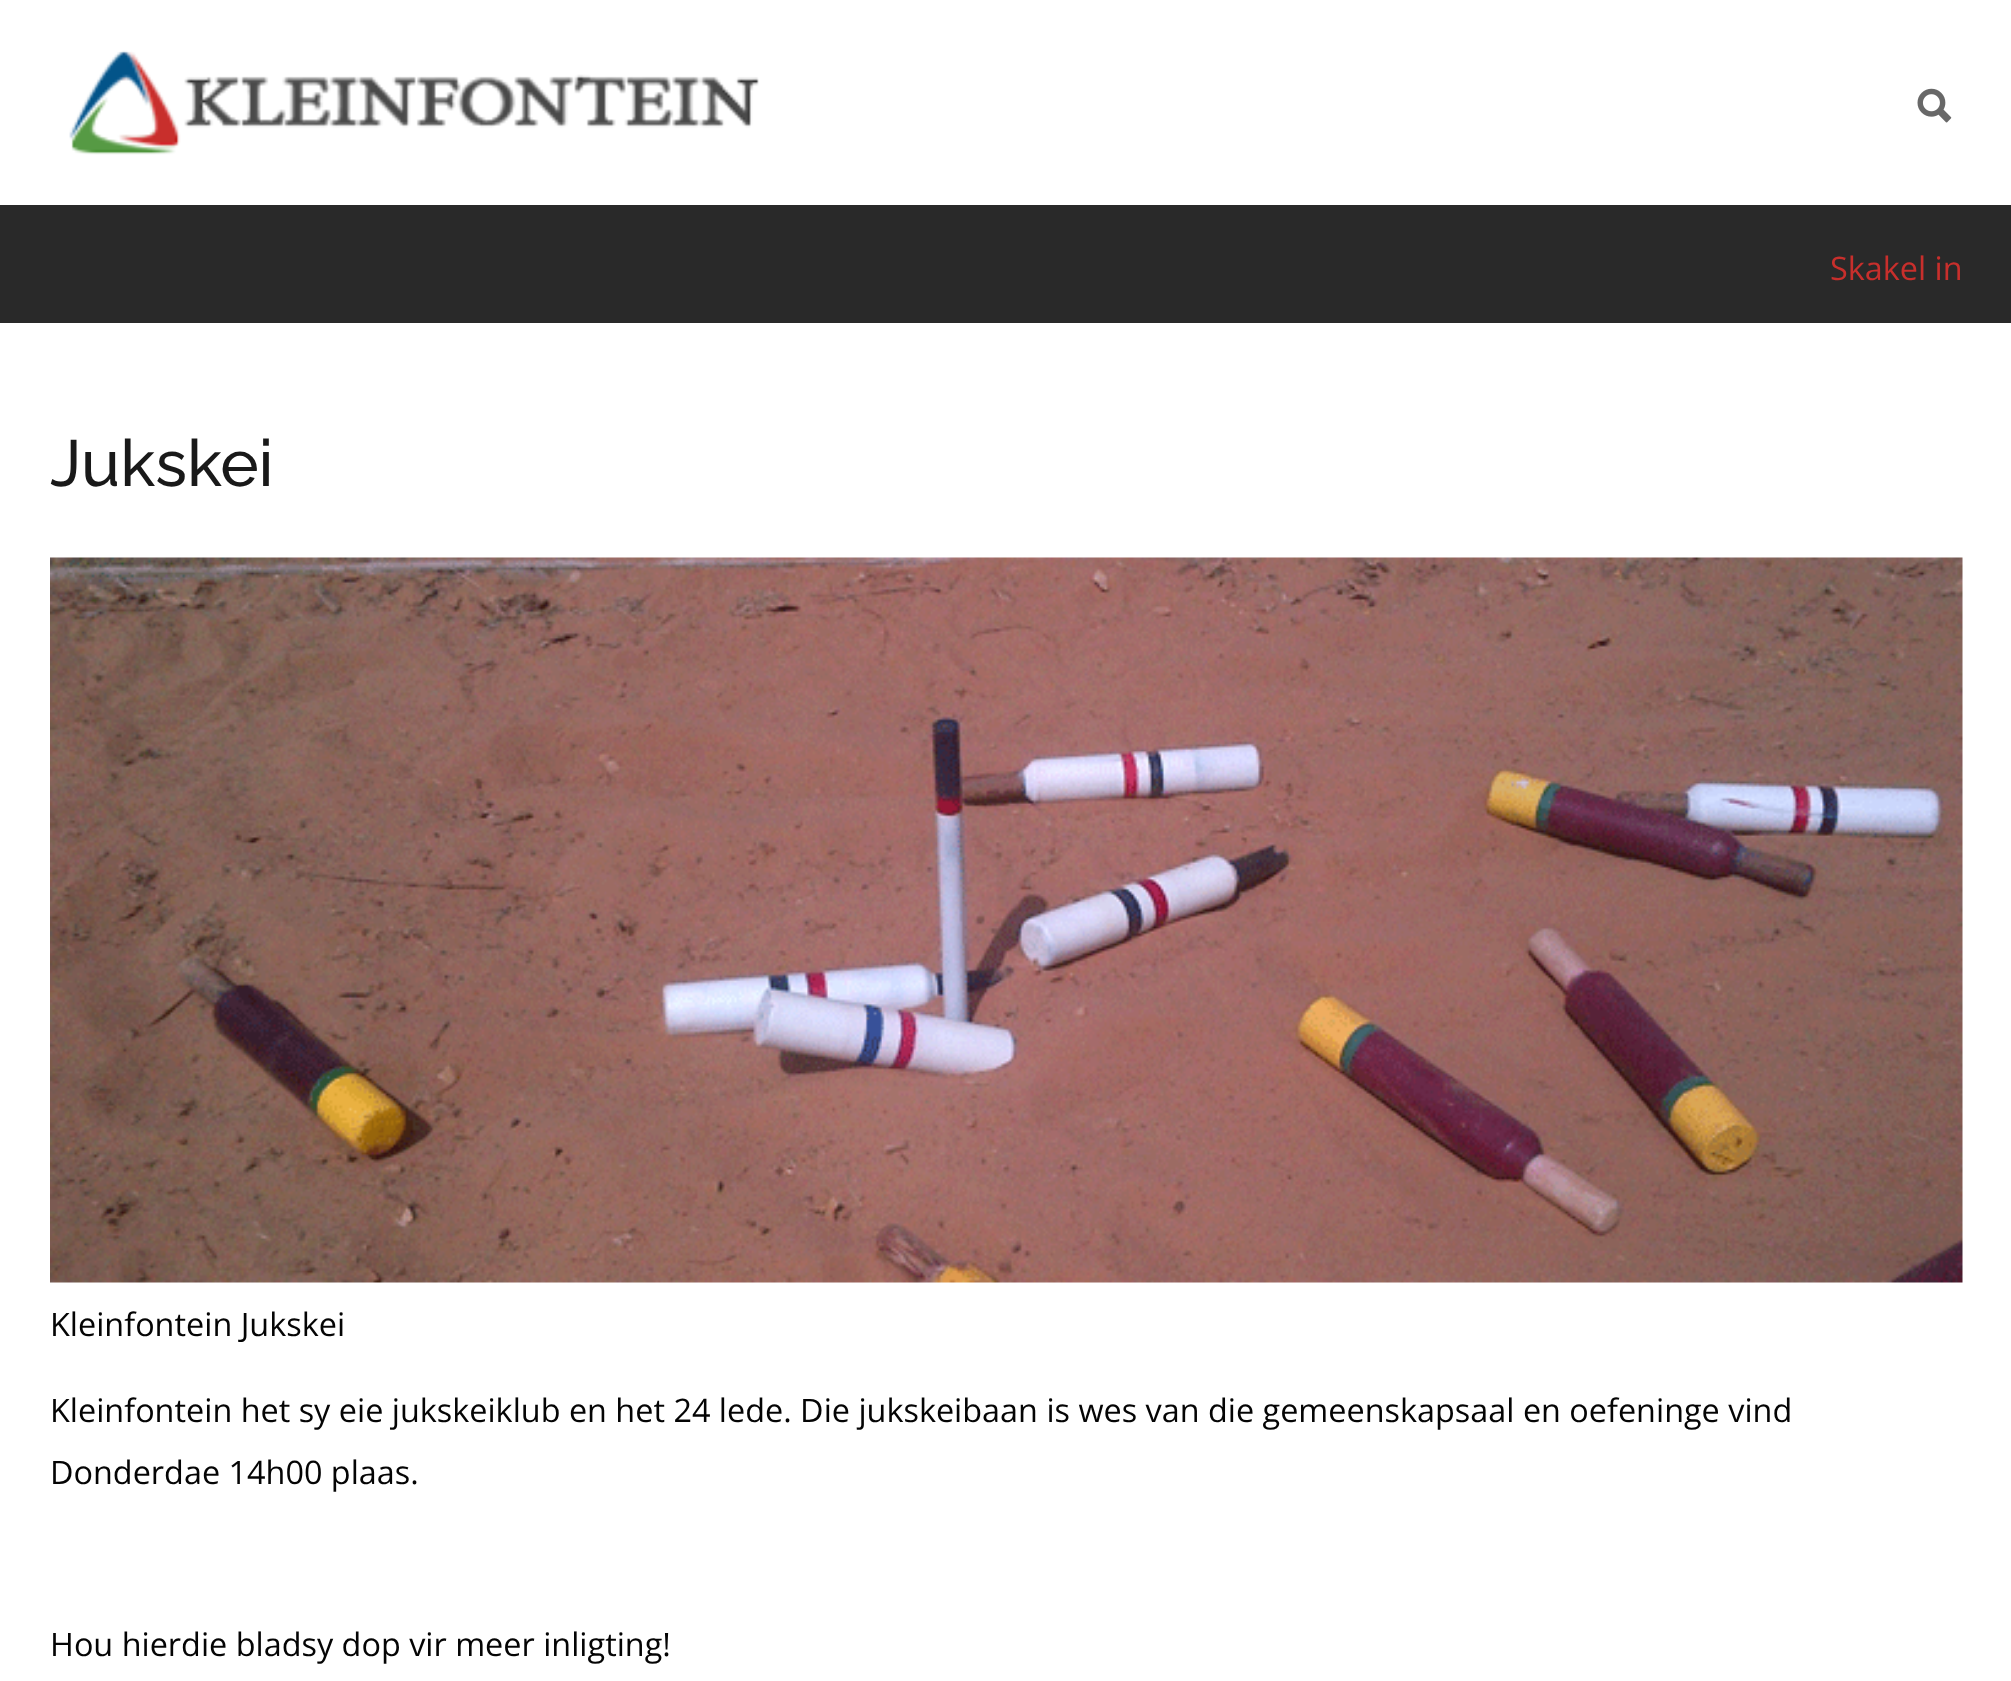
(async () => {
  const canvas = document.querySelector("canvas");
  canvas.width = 2011;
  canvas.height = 1681;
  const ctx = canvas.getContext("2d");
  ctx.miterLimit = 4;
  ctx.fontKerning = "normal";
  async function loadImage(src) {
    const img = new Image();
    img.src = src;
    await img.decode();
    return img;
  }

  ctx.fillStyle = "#ffffff";
  ctx.fillRect(0, 0, 2011, 1681);
  ctx.drawImage(await loadImage("img/1.png"), 69, 50, 690, 105);
  ctx.drawImage(await loadImage("img/2.png"), 1917, 88, 35, 35);
  ctx.fillStyle = "#292929";
  ctx.fillRect(0, 205, 2011, 118);
  ctx.drawImage(await loadImage("img/3.png"), 50, 557, 1913, 726);
  ctx.font = "32.4px Open Sans";
  ctx.fillStyle = "#c82f2c";
  ctx.fillText("Skakel in", 1830, 280);
  ctx.font = "500 65px Raleway";
  ctx.fillStyle = "#191919";
  ctx.fillText("Jukskei", 50, 486);
  ctx.font = "32.4px Open Sans";
  ctx.fillStyle = "#040404";
  for (const [text, x, y] of [
    ["Kleinfontein Jukskei", 50, 1336],
    ["Kleinfontein het sy eie jukskeiklub en het 24 lede. Die jukskeibaan is wes van die gemeenskapsaal en oefeninge vind", 50, 1422],
    ["Donderdae 14h00 plaas.", 50, 1484],
    ["Hou hierdie bladsy dop vir meer inligting!", 50, 1656],
  ]) {
    ctx.fillText(text, x, y);
  }
})();
